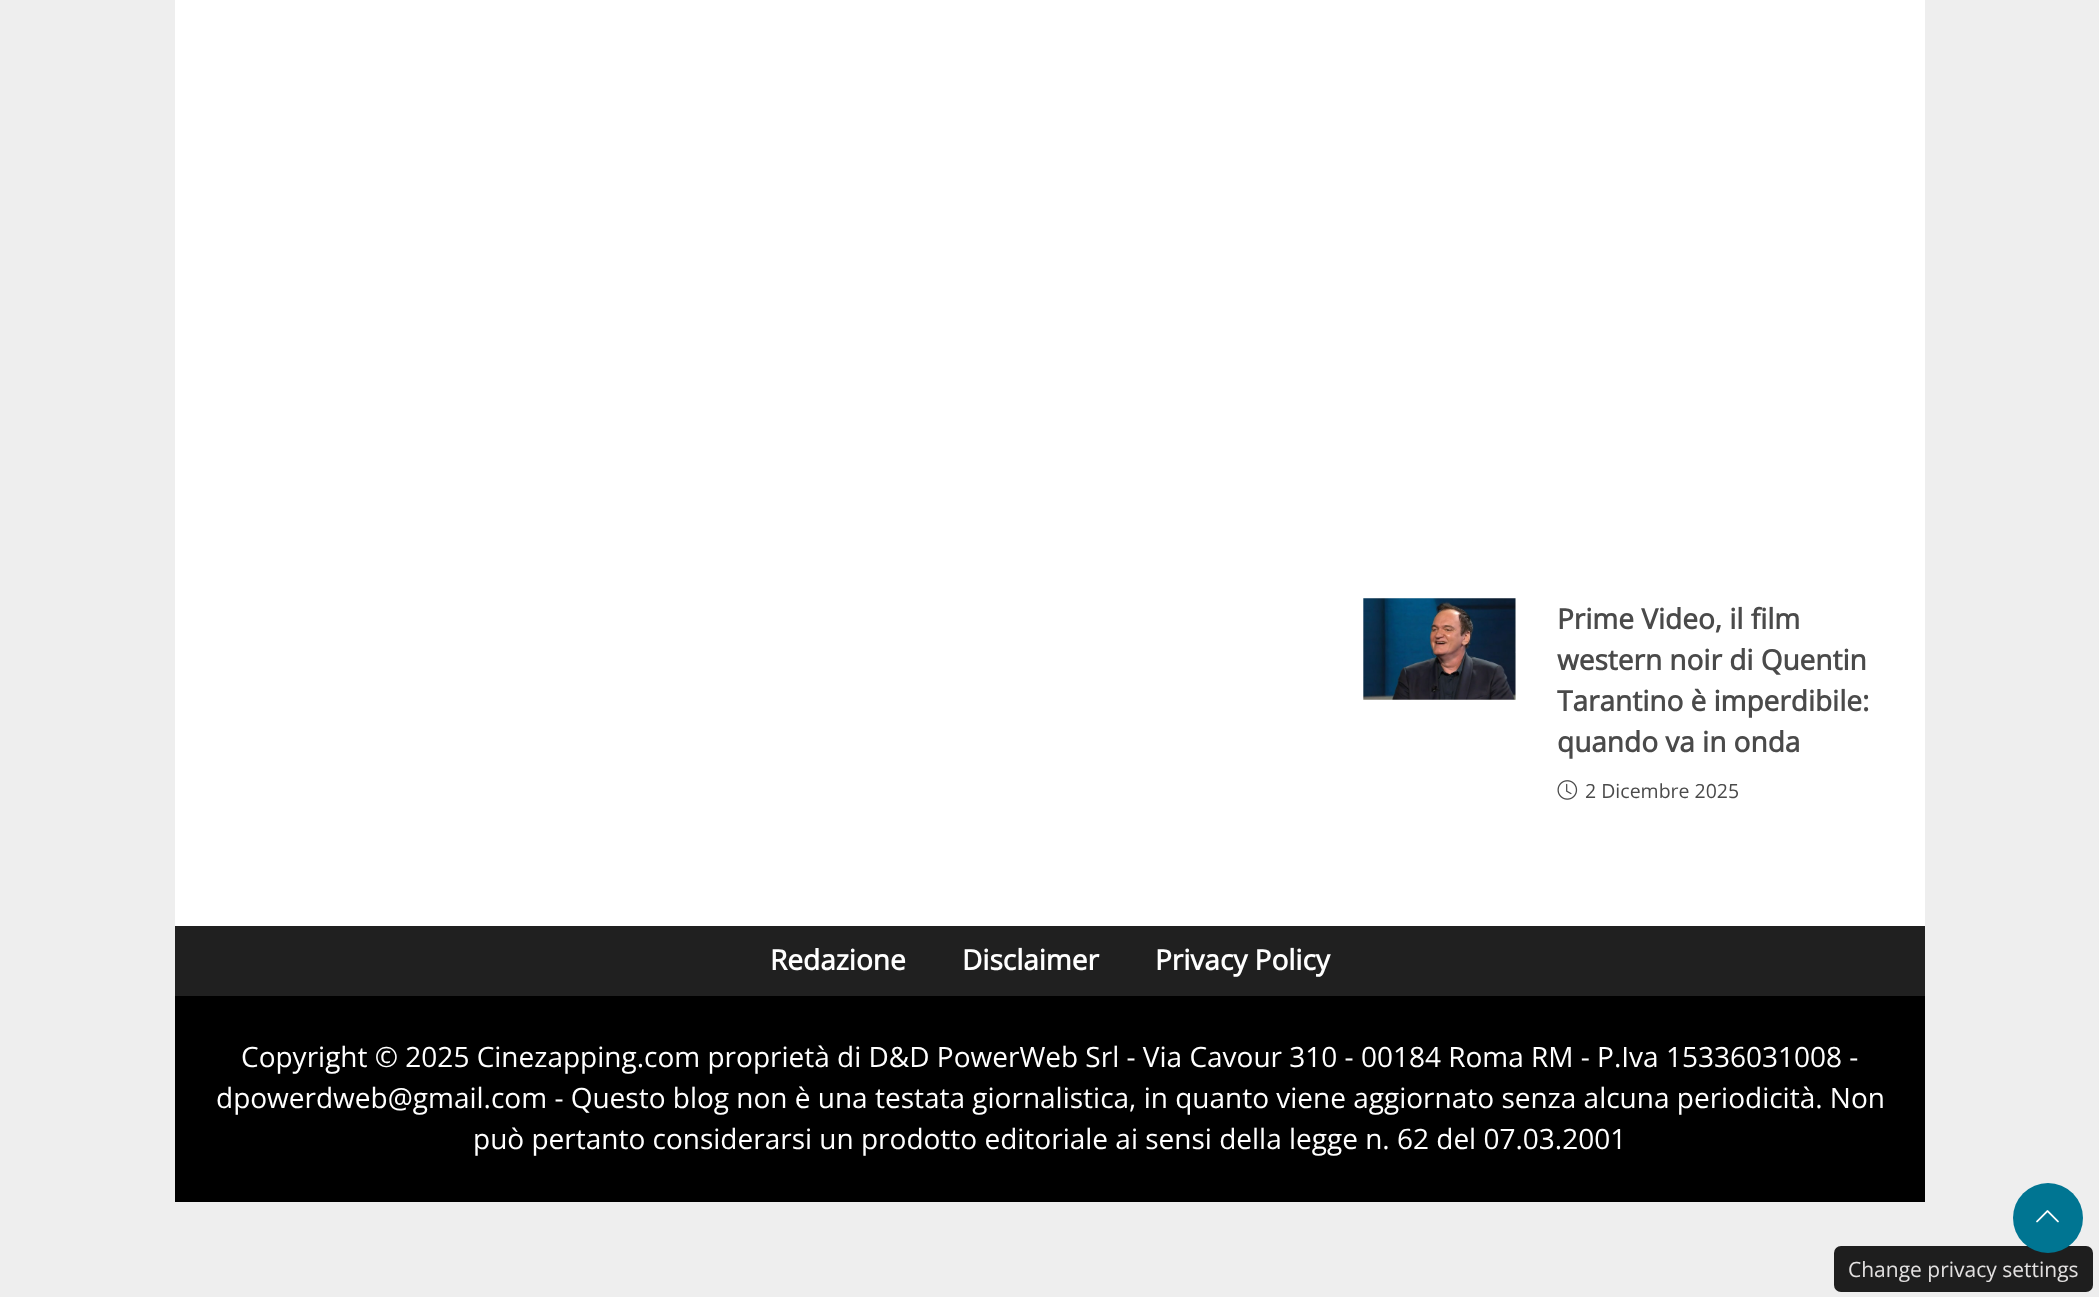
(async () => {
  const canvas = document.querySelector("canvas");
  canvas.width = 2099;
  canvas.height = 1297;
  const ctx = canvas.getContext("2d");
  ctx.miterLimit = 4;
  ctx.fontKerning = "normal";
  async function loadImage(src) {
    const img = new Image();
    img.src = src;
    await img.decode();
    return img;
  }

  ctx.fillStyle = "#eeeeee";
  ctx.fillRect(0, 0, 2099, 1297);
  ctx.fillStyle = "#ffffff";
  ctx.fillRect(175, 0, 1750, 926);
  ctx.drawImage(await loadImage("img/1.png"), 1363, 598, 153, 102);
  ctx.drawImage(await loadImage("img/2.png"), 1557, 780, 21, 20);
  ctx.fillStyle = "#202020";
  ctx.fillRect(175, 926, 1750, 70);
  ctx.fillStyle = "#000000";
  ctx.fillRect(175, 996, 1750, 206);
  ctx.fillStyle = "#1e1e1e";
  ctx.beginPath();
  ctx.roundRect(1834, 1246, 259, 46, 7);
  ctx.fill();
  ctx.fillStyle = "#007592";
  ctx.beginPath();
  ctx.arc(2048, 1218, 35, 0, Math.PI * 2);
  ctx.fill();
  ctx.drawImage(await loadImage("img/3.png"), 2036, 1210, 23, 13);
  ctx.font = "bold 28px Open Sans";
  ctx.fillStyle = "#4a4a4a";
  for (const [text, x, y] of [
    ["Prime Video, il film", 1557, 629],
    ["western noir di Quentin", 1557, 670],
    ["Tarantino è imperdibile:", 1557, 711],
    ["quando va in onda", 1557, 752],
  ]) {
    ctx.fillText(text, x, y);
  }
  ctx.font = "19.5px Open Sans";
  ctx.fillText("2 Dicembre 2025", 1585, 798);
  ctx.font = "bold 28px Open Sans";
  ctx.fillStyle = "#ffffff";
  for (const [text, x, y] of [
    ["Redazione", 770, 970],
    ["Disclaimer", 962, 970],
    ["Privacy Policy", 1155, 970],
  ]) {
    ctx.fillText(text, x, y);
  }
  ctx.font = "28px Open Sans";
  for (const [text, x, y] of [
    ["Copyright © 2025 Cinezapping.com proprietà di D&D PowerWeb Srl - Via Cavour 310 - 00184 Roma RM - P.Iva 15336031008 -", 241, 1067],
    ["dpowerdweb@gmail.com - Questo blog non è una testata giornalistica, in quanto viene aggiornato senza alcuna periodicità. Non", 216, 1108],
    ["può pertanto considerarsi un prodotto editoriale ai sensi della legge n. 62 del 07.03.2001", 473, 1149],
  ]) {
    ctx.fillText(text, x, y);
  }
  ctx.font = "21px Open Sans";
  ctx.fillStyle = "#e3e1e1";
  ctx.fillText("Change privacy settings", 1848, 1277);
})();
